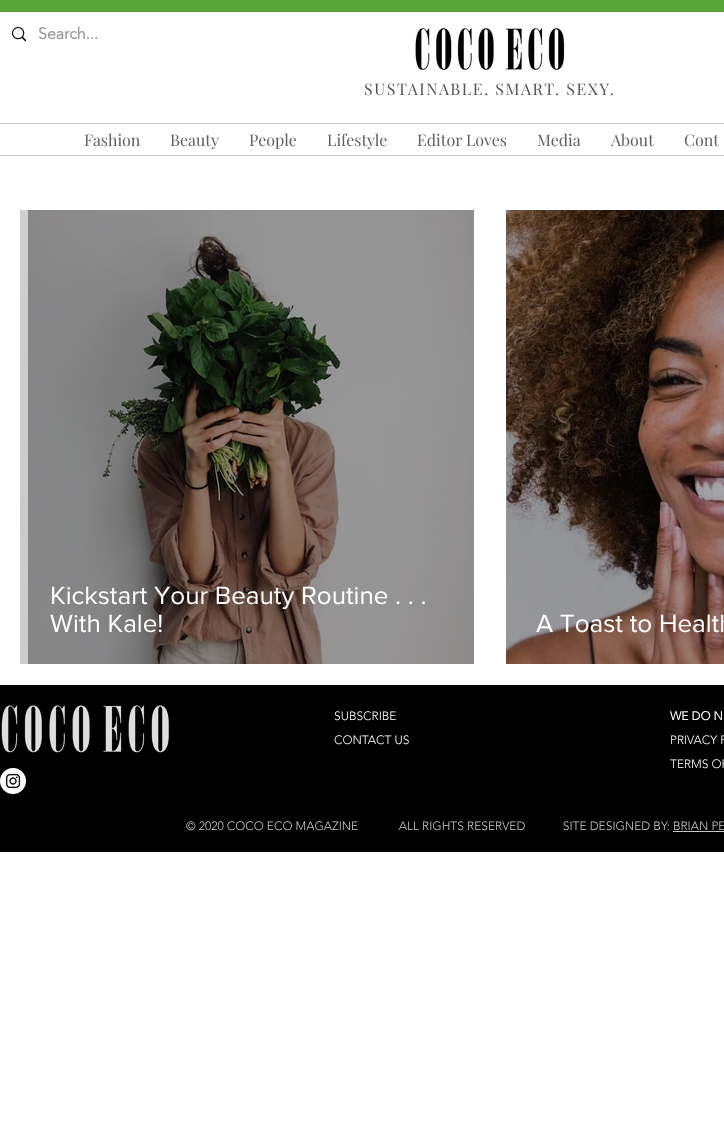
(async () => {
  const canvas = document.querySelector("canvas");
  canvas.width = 724;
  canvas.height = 1130;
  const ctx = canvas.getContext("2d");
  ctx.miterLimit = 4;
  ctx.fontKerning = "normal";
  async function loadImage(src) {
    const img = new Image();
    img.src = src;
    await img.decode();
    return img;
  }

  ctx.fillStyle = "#ffffff";
  ctx.fillRect(0, 0, 724, 1130);
  ctx.fillStyle = "#57a635";
  ctx.fillRect(0, 0, 724, 12);
  ctx.drawImage(await loadImage("img/1.png"), 12, 27, 14, 15);
  ctx.drawImage(await loadImage("img/2.png"), 415, 28, 150, 42);
  ctx.fillStyle = "#c7c7c7";
  ctx.fillRect(0, 123, 724, 1);
  ctx.fillRect(0, 155, 724, 1);
  ctx.drawImage(await loadImage("img/3.png"), 20, 210, 8, 454);
  ctx.drawImage(await loadImage("img/4.png"), 28, 210, 446, 454);
  ctx.drawImage(await loadImage("img/5.png"), 506, 210, 218, 454);
  ctx.fillStyle = "#000000";
  ctx.fillRect(0, 685, 724, 167);
  ctx.drawImage(await loadImage("img/6.png"), 1, 705, 168, 48);
  ctx.drawImage(await loadImage("img/7.png"), 0, 768, 26, 26);
  ctx.fillStyle = "#c7c7c7";
  ctx.fillRect(673, 831, 51, 1);
  ctx.font = "bold 16px 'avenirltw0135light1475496'";
  ctx.fillStyle = "#999999";
  ctx.fillText("Search...", 38, 39);
  ctx.letterSpacing = "1.6px";
  ctx.font = "16px Playfair Display";
  ctx.fillStyle = "#545454";
  ctx.fillText("SUSTAINABLE. SMART. SEXY.", 364, 95);
  ctx.letterSpacing = "0px";
  ctx.fillStyle = "#605e5e";
  for (const [text, x, y] of [
    ["Fashion", 84, 146],
    ["Beauty", 170, 146],
    ["People", 249, 146],
    ["Lifestyle", 327, 146],
    ["Editor Loves", 417, 146],
    ["Media", 537, 146],
    ["About", 611, 146],
    ["Cont", 684, 146],
  ]) {
    ctx.fillText(text, x, y);
  }
  ctx.font = "26px 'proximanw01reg'";
  ctx.fillStyle = "#ffffff";
  for (const [text, x, y] of [
    ["Kickstart Your Beauty Routine . . .", 50, 604],
    ["With Kale!", 50, 632],
    ["A Toast to Health", 536, 632],
  ]) {
    ctx.fillText(text, x, y);
  }
  ctx.font = "300 12px 'avenirltw0135light1475496'";
  ctx.fillText("SUBSCRIBE", 334, 720);
  ctx.fillText("CONTACT US", 334, 744);
  ctx.font = "bold 12px 'avenirltw0135light1475496'";
  ctx.fillText("WE DO N", 670, 720);
  ctx.font = "300 12px 'avenirltw0135light1475496'";
  ctx.fillText("PRIVACY P", 670, 744);
  ctx.fillText("TERMS OF", 670, 768);
  ctx.fillStyle = "#c7c7c7";
  ctx.fillText("© 2020 COCO ECO MAGAZINE             ALL RIGHTS RESERVED            SITE DESIGNED BY: BRIAN PE", 186, 830);
})();
